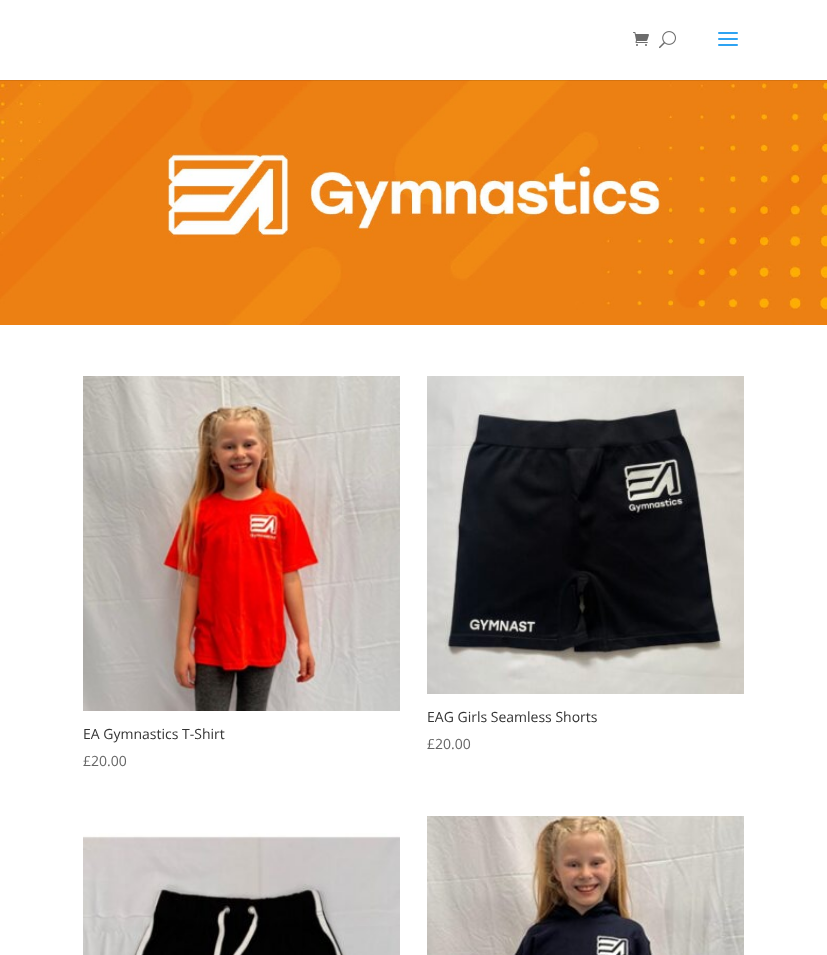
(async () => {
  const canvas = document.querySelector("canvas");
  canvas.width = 827;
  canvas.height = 955;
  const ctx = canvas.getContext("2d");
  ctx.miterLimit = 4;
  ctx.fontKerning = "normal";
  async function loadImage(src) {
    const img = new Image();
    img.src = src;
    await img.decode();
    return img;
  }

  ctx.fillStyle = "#ffffff";
  ctx.fillRect(0, 0, 827, 955);
  ctx.drawImage(await loadImage("img/4.png"), 0, 80, 827, 245);
  ctx.fillStyle = "rgba(0, 0, 0, 0.1)";
  ctx.fillRect(0, 80, 827, 1);
  ctx.drawImage(await loadImage("img/1.png"), 633, 32, 16, 14);
  ctx.drawImage(await loadImage("img/2.png"), 659, 31, 17, 18);
  ctx.drawImage(await loadImage("img/3.png"), 718, 32, 20, 14);
  ctx.drawImage(await loadImage("img/5.png"), 83, 376, 317, 335);
  ctx.drawImage(await loadImage("img/6.png"), 427, 376, 317, 318);
  ctx.drawImage(await loadImage("img/7.png"), 83, 833, 317, 122);
  ctx.drawImage(await loadImage("img/8.png"), 427, 816, 317, 139);
  ctx.font = "14px Open Sans";
  ctx.fillStyle = "#333333";
  ctx.fillText("EA Gymnastics T-Shirt", 83, 739);
  ctx.fillStyle = "#666666";
  ctx.fillText("£20.00", 83, 766);
  ctx.fillStyle = "#333333";
  ctx.fillText("EAG Girls Seamless Shorts", 427, 722);
  ctx.fillStyle = "#666666";
  ctx.fillText("£20.00", 427, 749);
})();
